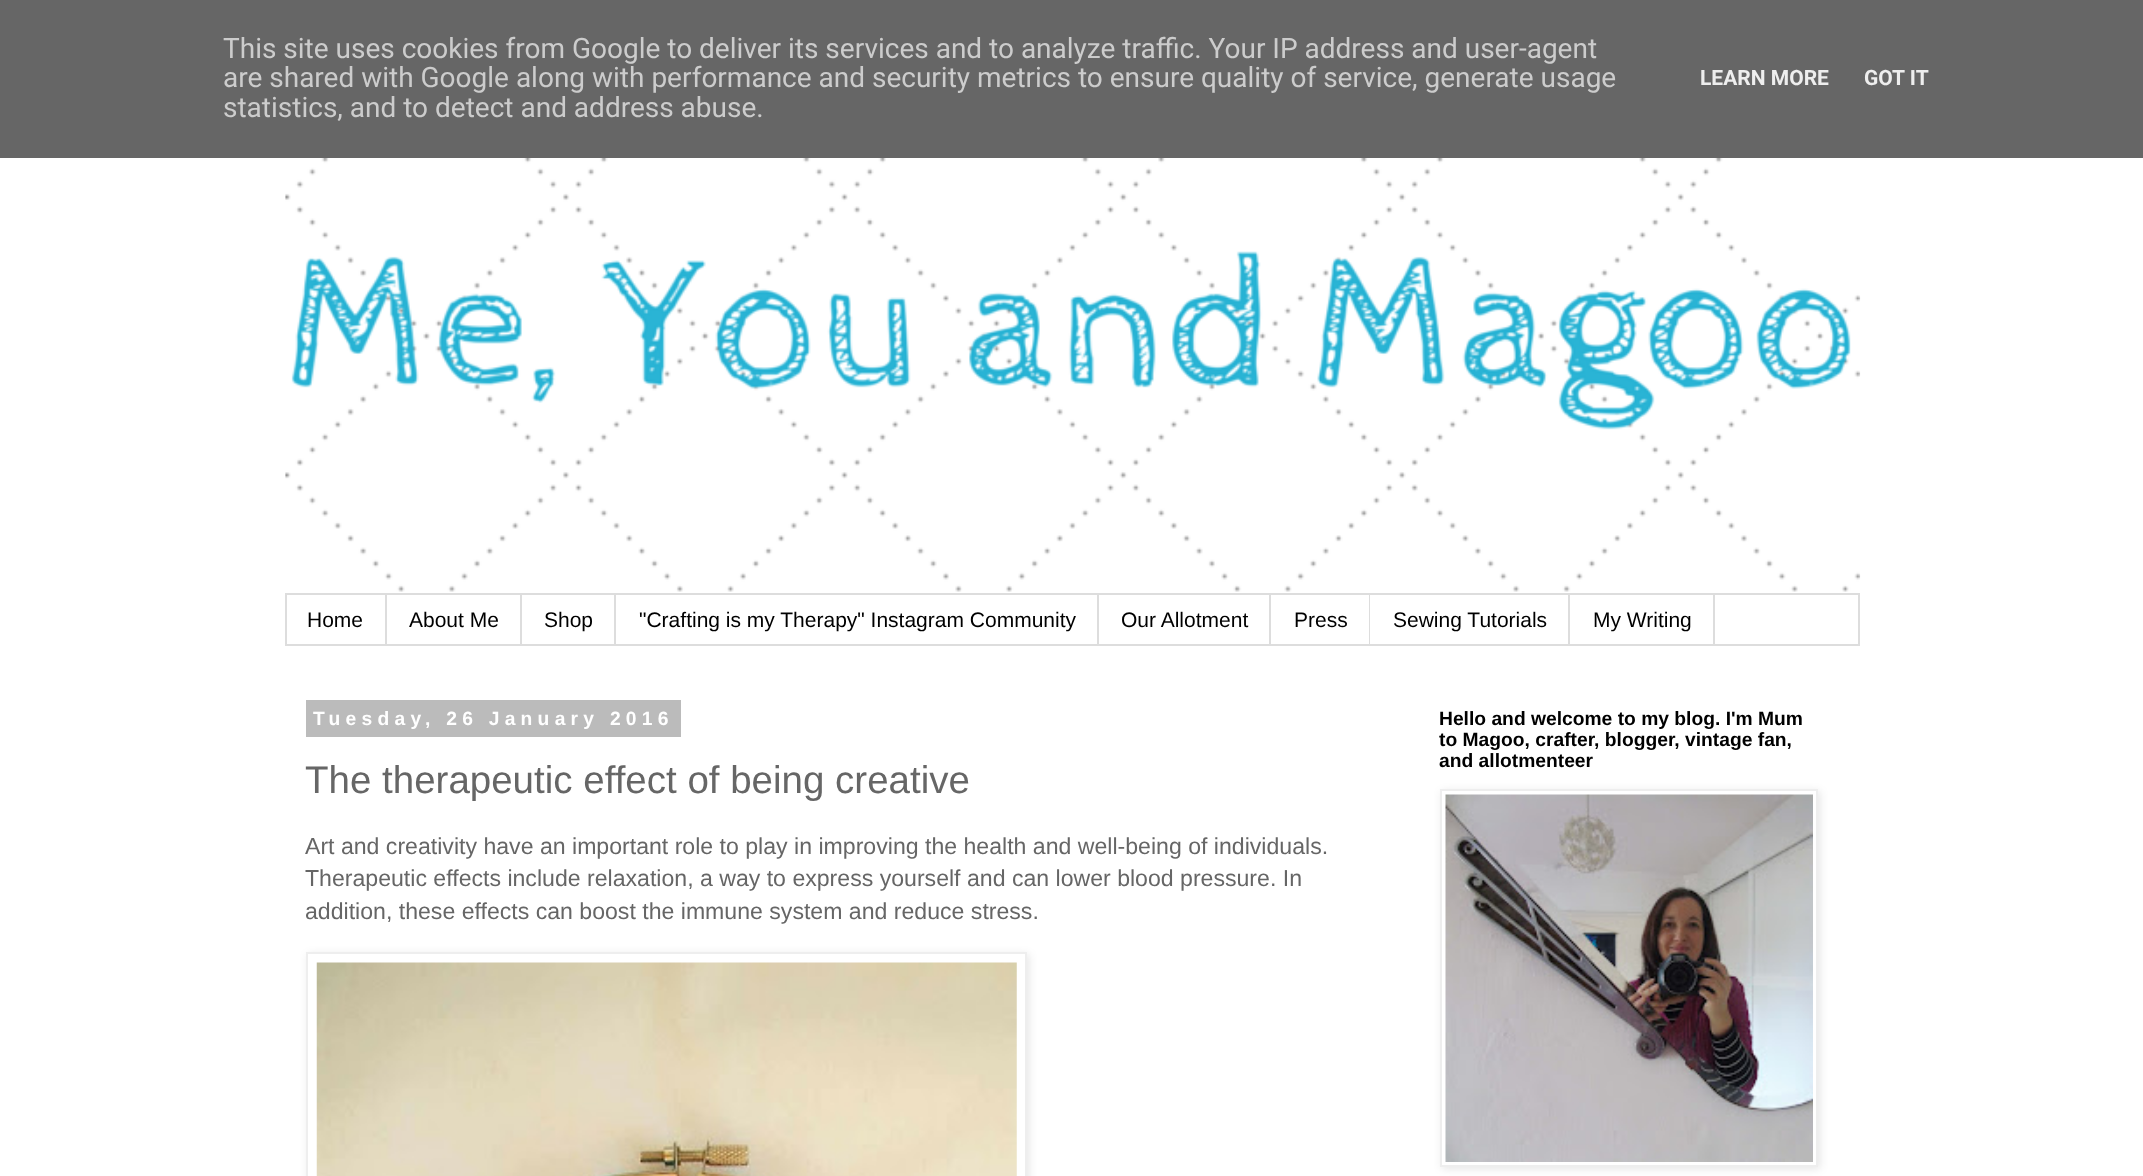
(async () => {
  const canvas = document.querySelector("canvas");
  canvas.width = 2143;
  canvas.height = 1176;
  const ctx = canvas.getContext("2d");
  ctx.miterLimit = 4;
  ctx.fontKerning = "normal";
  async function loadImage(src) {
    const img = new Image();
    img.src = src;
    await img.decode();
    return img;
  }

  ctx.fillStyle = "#ffffff";
  ctx.fillRect(0, 0, 2143, 1176);
  ctx.fillStyle = "#666666";
  ctx.fillRect(0, 0, 2143, 158);
  ctx.drawImage(await loadImage("img/1.png"), 285, 158, 1576, 434);
  ctx.strokeStyle = "#dddddd";
  ctx.lineWidth = 2;
  ctx.strokeRect(286, 594, 1573, 51);
  for (const [x, y, w, h, color] of [
    [385, 595, 2, 49, "#dddddd"],
    [520, 595, 2, 49, "#dddddd"],
    [614, 595, 2, 49, "#dddddd"],
    [1097, 595, 2, 49, "#dddddd"],
    [1269, 595, 2, 49, "#dddddd"],
    [1369, 595, 1, 49, "#dddddd"],
    [1568, 595, 2, 49, "#dddddd"],
    [1713, 595, 2, 49, "#dddddd"],
    [306, 700, 375, 37, "#bbbbbb"],
  ]) {
    ctx.fillStyle = color;
    ctx.fillRect(x, y, w, h);
  }
  ctx.fillStyle = "rgba(0, 0, 0, 0.1)";
  ctx.filter = "blur(4.5px)";
  ctx.beginPath();
  ctx.rect(308, 954, 721, 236);
  ctx.fill();
  ctx.filter = "none";
  ctx.fillStyle = "#ffffff";
  ctx.beginPath();
  ctx.rect(307, 953, 719, 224);
  ctx.fill();
  ctx.strokeStyle = "#eeeeee";
  ctx.stroke();
  ctx.drawImage(await loadImage("img/2.png"), 316, 962, 701, 214);
  ctx.fillStyle = "rgba(0, 0, 0, 0.1)";
  ctx.filter = "blur(4.5px)";
  ctx.beginPath();
  ctx.rect(1442, 791, 378, 378);
  ctx.fill();
  ctx.filter = "none";
  ctx.fillStyle = "#ffffff";
  ctx.beginPath();
  ctx.rect(1441, 790, 376, 376);
  ctx.fill();
  ctx.stroke();
  ctx.drawImage(await loadImage("img/3.png"), 1445, 794, 368, 368);
  ctx.font = "28px Roboto";
  ctx.fillStyle = "#cccccc";
  for (const [text, x, y] of [
    ["This site uses cookies from Google to deliver its services and to analyze traffic. Your IP address and user-agent", 223, 58],
    ["are shared with Google along with performance and security metrics to ensure quality of service, generate usage", 223, 87],
    ["statistics, and to detect and address abuse.", 223, 117],
  ]) {
    ctx.fillText(text, x, y);
  }
  ctx.font = "bold 21px Roboto";
  ctx.fillStyle = "#eeeeee";
  ctx.fillText("LEARN MORE", 1700, 85);
  ctx.fillText("GOT IT", 1864, 85);
  ctx.font = "21px Liberation Sans";
  ctx.fillStyle = "#000000";
  for (const [text, x, y] of [
    ["Home", 307, 627],
    ["About Me", 409, 627],
    ["Shop", 544, 627],
    ["\"Crafting is my Therapy\" Instagram Community", 639, 627],
    ["Our Allotment", 1121, 627],
    ["Press", 1294, 627],
    ["Sewing Tutorials", 1393, 627],
    ["My Writing", 1593, 627],
  ]) {
    ctx.fillText(text, x, y);
  }
  ctx.letterSpacing = "5.25px";
  ctx.font = "bold 19.25px Liberation Sans";
  ctx.fillStyle = "#ffffff";
  ctx.fillText("Tuesday, 26 January 2016", 313, 725);
  ctx.letterSpacing = "0px";
  ctx.font = "38.5px Liberation Sans";
  ctx.fillStyle = "#666666";
  ctx.fillText("The therapeutic effect of being creative", 305, 793);
  ctx.font = "23.1px Liberation Sans";
  for (const [text, x, y] of [
    ["Art and creativity have an important role to play in improving the health and well-being of individuals.", 305, 854],
    ["Therapeutic effects include relaxation, a way to express yourself and can lower blood pressure. In", 305, 886],
    ["addition, these effects can boost the immune system and reduce stress.", 305, 919],
  ]) {
    ctx.fillText(text, x, y);
  }
  ctx.font = "bold 19.25px Liberation Sans";
  ctx.fillStyle = "#000000";
  for (const [text, x, y] of [
    ["Hello and welcome to my blog. I'm Mum", 1439, 725],
    ["to Magoo, crafter, blogger, vintage fan,", 1439, 746],
    ["and allotmenteer", 1439, 767],
  ]) {
    ctx.fillText(text, x, y);
  }
})();
